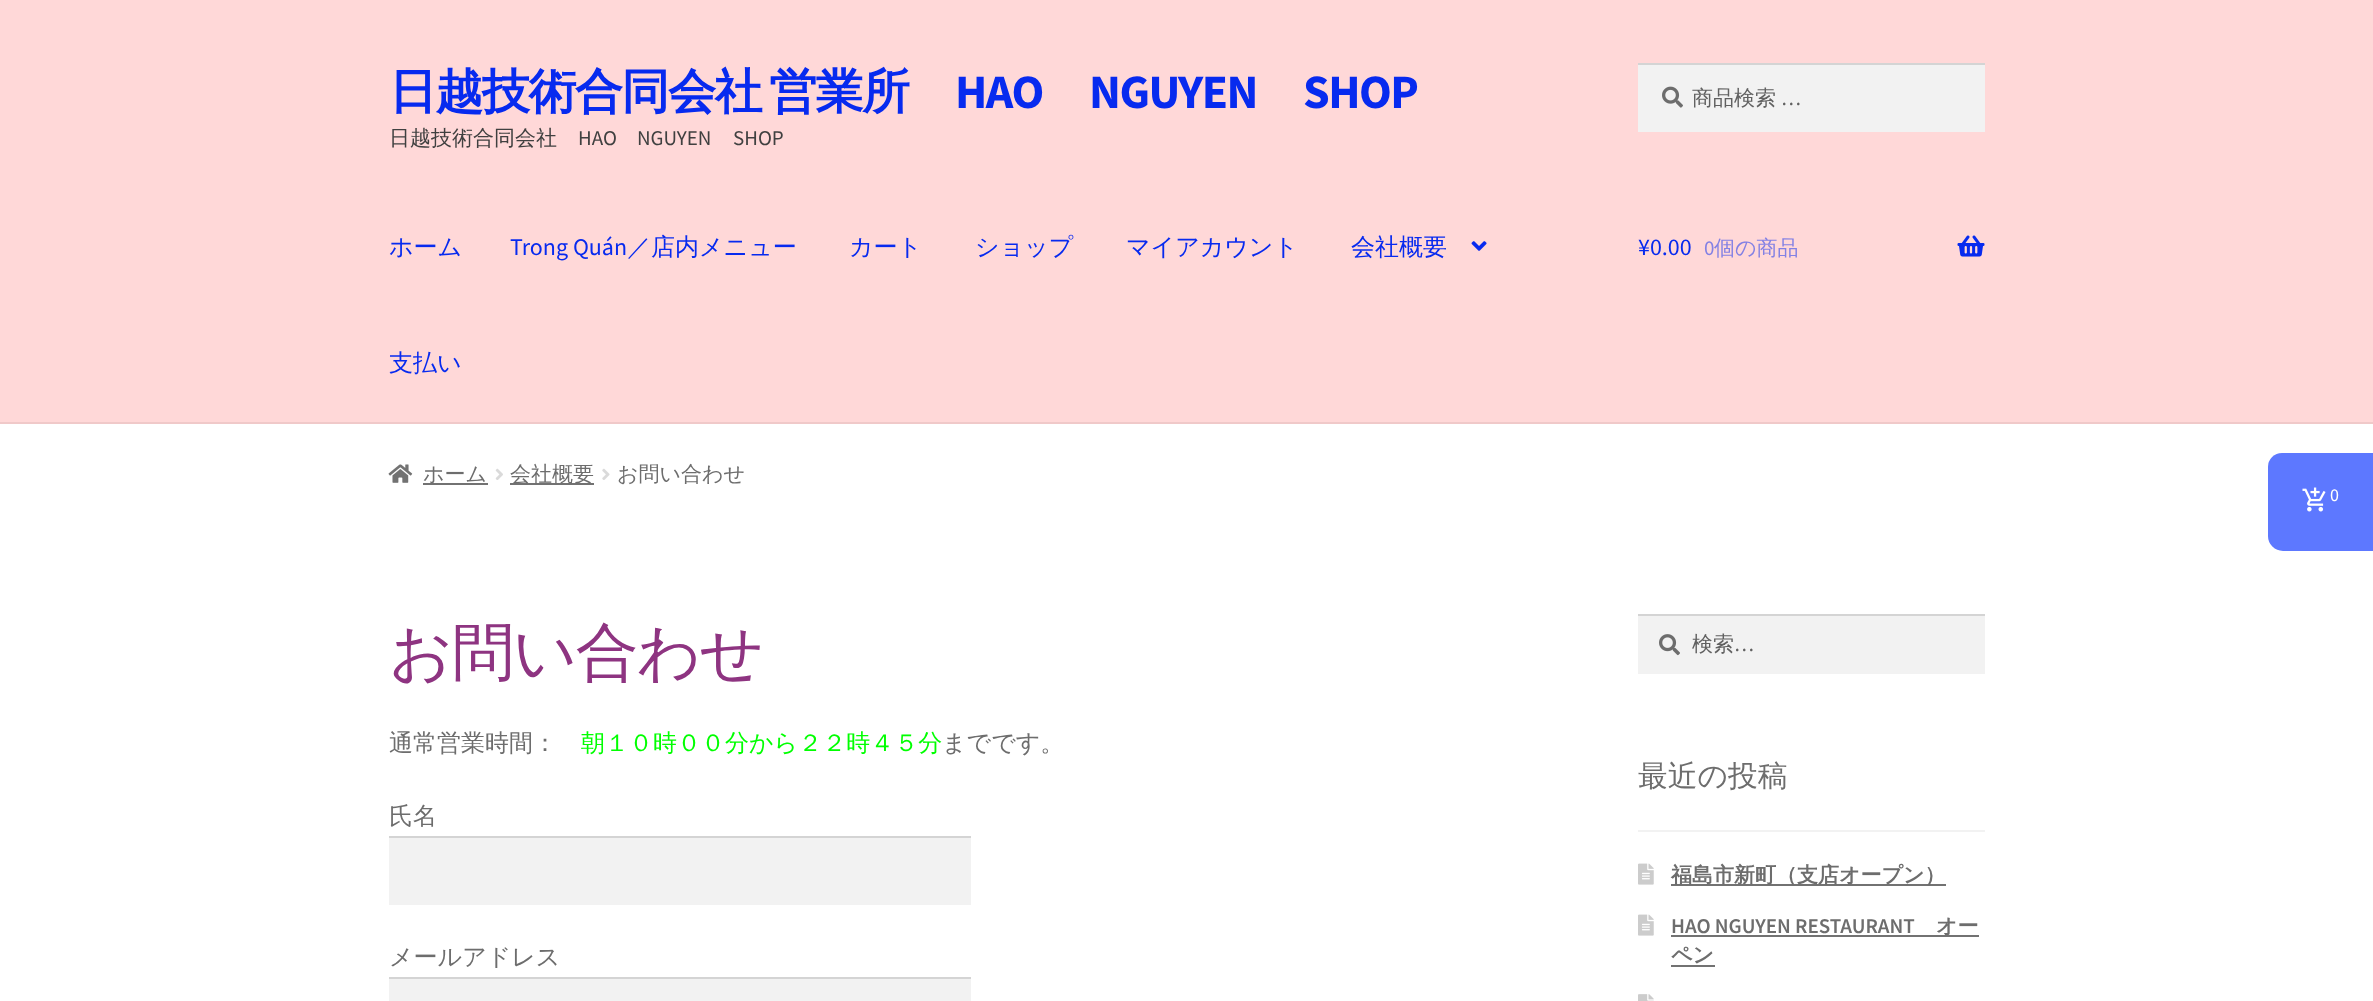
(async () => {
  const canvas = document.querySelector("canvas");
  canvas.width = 2373;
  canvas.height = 1001;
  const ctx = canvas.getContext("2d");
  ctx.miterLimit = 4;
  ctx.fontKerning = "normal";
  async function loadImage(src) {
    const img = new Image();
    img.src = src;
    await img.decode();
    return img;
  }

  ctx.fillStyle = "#ffffff";
  ctx.fillRect(0, 0, 2373, 1001);
  for (const [x, y, w, h, color] of [
    [0, 0, 2373, 422, "#ffd8d8"],
    [0, 422, 2373, 2, "#f0c9c9"],
    [1638, 65, 347, 67, "#f2f2f2"],
  ]) {
    ctx.fillStyle = color;
    ctx.fillRect(x, y, w, h);
  }
  ctx.drawImage(await loadImage("img/1.png"), 1662, 86, 21, 22);
  ctx.fillStyle = "#d4d4d4";
  ctx.fillRect(1638, 63, 347, 2);
  ctx.drawImage(await loadImage("img/2.png"), 1471, 241, 16, 10);
  ctx.drawImage(await loadImage("img/3.png"), 1957, 235, 28, 22);
  ctx.drawImage(await loadImage("img/4.png"), 388, 464, 25, 19);
  ctx.fillStyle = "#727272";
  ctx.fillRect(423, 483, 65, 2);
  ctx.drawImage(await loadImage("img/5.png"), 495, 468, 8, 12);
  ctx.fillRect(510, 483, 84, 2);
  ctx.drawImage(await loadImage("img/6.png"), 602, 468, 8, 12);
  for (const [x, y, w, h, color] of [
    [389, 838, 582, 67, "#f2f2f2"],
    [389, 836, 582, 2, "#d4d4d4"],
    [389, 979, 582, 22, "#f2f2f2"],
    [389, 977, 582, 2, "#d4d4d4"],
    [1638, 616, 347, 58, "#f2f2f2"],
  ]) {
    ctx.fillStyle = color;
    ctx.fillRect(x, y, w, h);
  }
  ctx.drawImage(await loadImage("img/7.png"), 1659, 634, 21, 22);
  ctx.fillStyle = "#d4d4d4";
  ctx.fillRect(1638, 614, 347, 2);
  ctx.fillStyle = "#f2f2f2";
  ctx.fillRect(1638, 830, 347, 2);
  ctx.drawImage(await loadImage("img/8.png"), 1638, 863, 16, 22);
  ctx.fillStyle = "#727272";
  ctx.fillRect(1671, 884, 275, 2);
  ctx.drawImage(await loadImage("img/8.png"), 1638, 914, 16, 22);
  ctx.fillRect(1671, 935, 308, 2);
  ctx.fillRect(1671, 965, 44, 2);
  ctx.drawImage(await loadImage("img/9.png"), 1638, 994, 16, 7);
  ctx.fillStyle = "#5d78ff";
  ctx.beginPath();
  ctx.roundRect(2268, 453, 105, 98, [14, 0, 0, 15]);
  ctx.fill();
  ctx.drawImage(await loadImage("img/10.png"), 2302, 487, 24, 25);
  ctx.letterSpacing = "-1.5px";
  ctx.wordSpacing = "-5px";
  ctx.font = "bold 48px WenQuanYi Zen Hei";
  ctx.fillStyle = "#072aef";
  ctx.fillText("日越技術合同会社 営業所", 389, 108);
  ctx.wordSpacing = "0px";
  ctx.font = "bold 48px Source Sans Pro";
  for (const [text, x, y] of [
    ["HAO", 955, 108],
    ["NGUYEN", 1089, 108],
    ["SHOP", 1303, 108],
  ]) {
    ctx.fillText(text, x, y);
  }
  ctx.letterSpacing = "0px";
  ctx.font = "500 21px WenQuanYi Zen Hei";
  ctx.fillStyle = "#404040";
  ctx.fillText("日越技術合同会社", 389, 145);
  ctx.font = "21px Source Sans Pro";
  for (const [text, x, y] of [
    ["HAO", 578, 145],
    ["NGUYEN", 637, 145],
    ["SHOP", 733, 145],
  ]) {
    ctx.fillText(text, x, y);
  }
  ctx.font = "500 21px WenQuanYi Zen Hei";
  ctx.fillStyle = "#616161";
  ctx.fillText("商品検索", 1692, 105);
  ctx.font = "21px Source Sans Pro";
  ctx.fillText("…", 1781, 105);
  ctx.font = "500 24px WenQuanYi Zen Hei";
  ctx.fillStyle = "#072aef";
  ctx.fillText("ホーム", 389, 255);
  ctx.font = "24px Source Sans Pro";
  ctx.fillText("Trong Quán", 510, 255);
  ctx.font = "500 24px WenQuanYi Zen Hei";
  for (const [text, x, y] of [
    ["／店内メニュー", 627, 255],
    ["カート", 849, 255],
    ["ショップ", 975, 255],
    ["マイアカウント", 1126, 255],
    ["会社概要", 1351, 255],
    ["支払い", 389, 371],
  ]) {
    ctx.fillText(text, x, y);
  }
  ctx.font = "24px Source Sans Pro";
  ctx.fillText("¥0.00", 1638, 255);
  ctx.font = "21px Source Sans Pro";
  ctx.fillStyle = "#8381e4";
  ctx.fillText("0", 1704, 255);
  ctx.font = "500 21px WenQuanYi Zen Hei";
  ctx.fillText("個の商品", 1714, 255);
  ctx.fillStyle = "#6d6d6d";
  for (const [text, x, y] of [
    ["ホーム", 423, 481],
    ["会社概要", 510, 481],
    ["お問い合わせ", 617, 481],
  ]) {
    ctx.fillText(text, x, y);
  }
  ctx.letterSpacing = "-1.5px";
  ctx.font = "500 62.75px WenQuanYi Zen Hei";
  ctx.fillStyle = "#8e3481";
  ctx.fillText("お問い合わせ", 389, 674);
  ctx.letterSpacing = "0px";
  ctx.font = "500 24px WenQuanYi Zen Hei";
  ctx.fillStyle = "#6d6d6d";
  ctx.fillText("通常営業時間：", 389, 751);
  ctx.fillStyle = "#00ff00";
  ctx.fillText("朝１０時００分から２２時４５分", 581, 751);
  ctx.fillStyle = "#6d6d6d";
  for (const [text, x, y] of [
    ["までです。", 942, 751],
    ["氏名", 389, 824],
    ["メールアドレス", 389, 965],
  ]) {
    ctx.fillText(text, x, y);
  }
  ctx.font = "500 21px WenQuanYi Zen Hei";
  ctx.fillStyle = "#616161";
  ctx.fillText("検索", 1692, 651);
  ctx.font = "21px Source Sans Pro";
  ctx.fillText("…", 1734, 651);
  ctx.font = "500 29.75px WenQuanYi Zen Hei";
  ctx.fillStyle = "#6d6d6d";
  ctx.fillText("最近の投稿", 1638, 786);
  ctx.font = "bold 21px WenQuanYi Zen Hei";
  ctx.fillText("福島市新町（支店オープン）", 1671, 882);
  ctx.font = "600 21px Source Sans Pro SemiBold";
  ctx.fillText("HAO NGUYEN RESTAURANT", 1671, 933);
  ctx.font = "bold 21px WenQuanYi Zen Hei";
  ctx.fillText("オー", 1936, 933);
  ctx.fillText("ペン", 1671, 962);
  ctx.font = "18px Source Sans Pro";
  ctx.fillStyle = "#ffffff";
  ctx.fillText("0", 2330, 501);
})();
